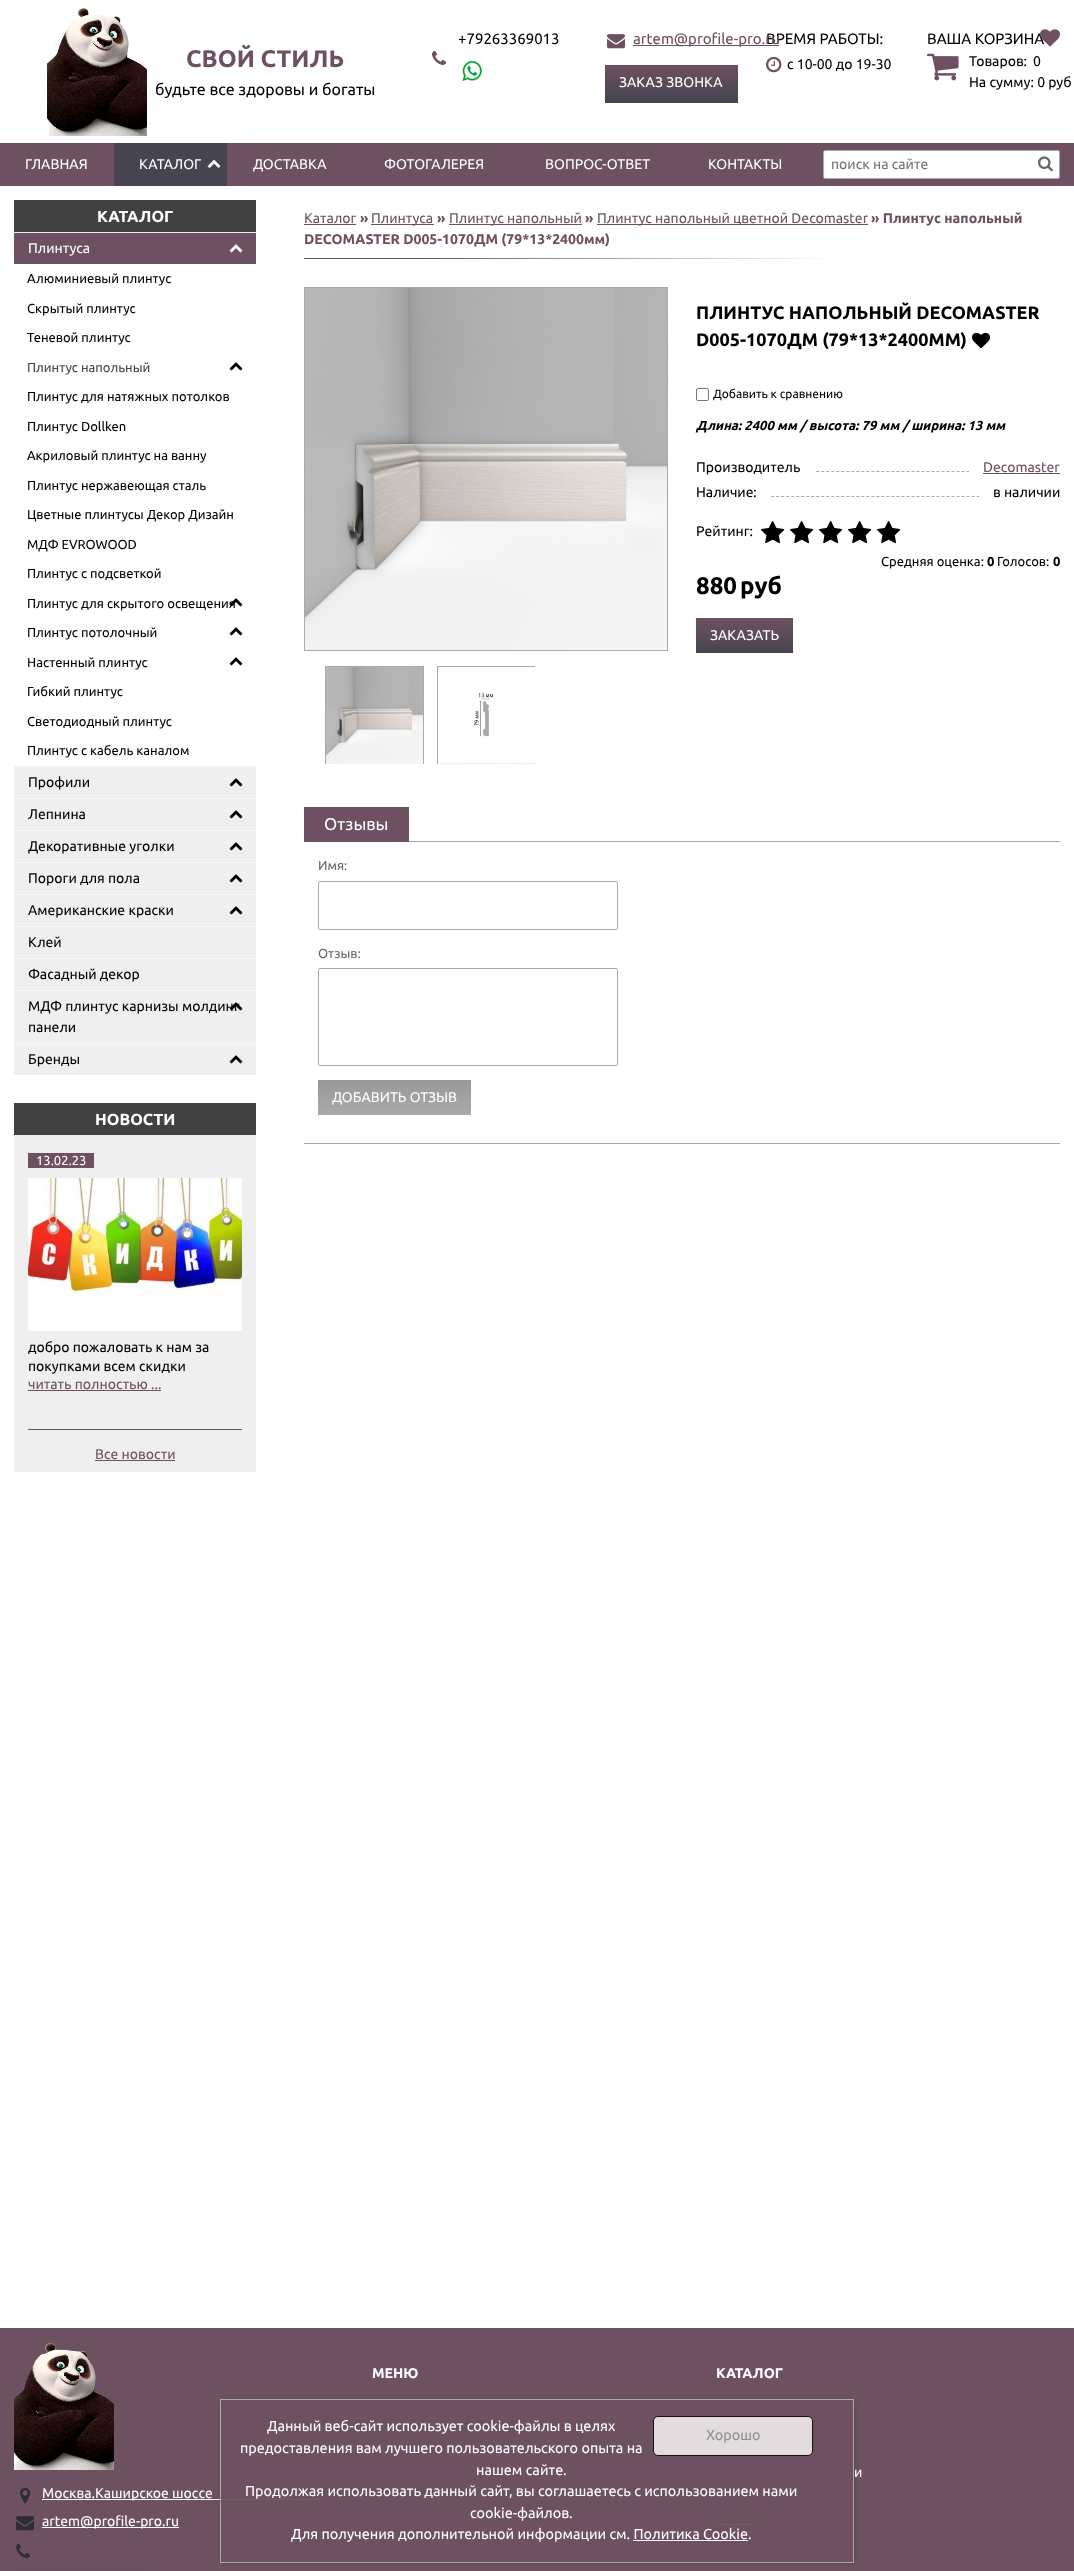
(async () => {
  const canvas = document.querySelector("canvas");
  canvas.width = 1074;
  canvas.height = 2571;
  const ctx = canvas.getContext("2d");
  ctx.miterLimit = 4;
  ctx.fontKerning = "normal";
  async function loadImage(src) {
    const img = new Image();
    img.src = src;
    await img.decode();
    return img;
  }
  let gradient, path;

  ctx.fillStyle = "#ffffff";
  ctx.fillRect(0, 0, 1074, 2571);
  ctx.drawImage(await loadImage("img/1.png"), 47, 8, 100, 128);
  ctx.drawImage(await loadImage("img/2.png"), 432, 50, 15, 15);
  ctx.drawImage(await loadImage("img/3.png"), 462, 61, 20, 20);
  ctx.drawImage(await loadImage("img/4.png"), 607, 34, 18, 15);
  ctx.fillStyle = "#6e5160";
  ctx.fillRect(633, 45, 146, 1);
  gradient = ctx.createLinearGradient(672, 100, 672, 65);
  gradient.addColorStop(0, "#464451");
  gradient.addColorStop(1, "#6e5160");
  ctx.fillStyle = gradient;
  ctx.fillRect(605, 65, 133, 35);
  ctx.fillStyle = "#464451";
  ctx.fillRect(605, 100, 133, 3);
  ctx.drawImage(await loadImage("img/5.png"), 766, 56, 16, 17);
  ctx.drawImage(await loadImage("img/7.png"), 927, 53, 32, 28);
  ctx.fillStyle = "#6e5160";
  ctx.fillRect(0, 143, 1074, 43);
  ctx.fillStyle = "#464451";
  ctx.fillRect(114, 143, 113, 43);
  ctx.drawImage(await loadImage("img/8.png"), 207, 159, 14, 9);
  ctx.fillStyle = "#ffffff";
  ctx.beginPath();
  ctx.roundRect(823.5, 150.5, 236, 28, 1.5);
  ctx.fill();
  ctx.strokeStyle = "#aaaaaa";
  ctx.stroke();
  ctx.drawImage(await loadImage("img/9.png"), 1038, 156, 15, 16);
  ctx.fillStyle = "#efefef";
  ctx.fillRect(14, 232, 242, 843);
  ctx.fillStyle = "#414141";
  ctx.fillRect(14, 200, 242, 32);
  path = new Path2D("M14 766.5H256");
  ctx.strokeStyle = "#ffffff";
  ctx.setLineDash([1, 1]);
  ctx.stroke(path);
  ctx.fillStyle = "#6e5160";
  ctx.fillRect(14, 233, 242, 31);
  ctx.drawImage(await loadImage("img/10.png"), 229, 244, 14, 9);
  ctx.fillStyle = "#ffffff";
  ctx.fillRect(14, 264, 242, 502);
  ctx.drawImage(await loadImage("img/11.png"), 229, 362, 14, 9);
  ctx.drawImage(await loadImage("img/11.png"), 229, 627, 14, 9);
  ctx.drawImage(await loadImage("img/11.png"), 229, 657, 14, 9);
  path = new Path2D("M14 798.5H256");
  ctx.stroke(path);
  ctx.drawImage(await loadImage("img/13.png"), 229, 778, 14, 9);
  path = new Path2D("M14 830.5H256");
  ctx.stroke(path);
  ctx.drawImage(await loadImage("img/13.png"), 229, 810, 14, 9);
  path = new Path2D("M14 862.5H256");
  ctx.stroke(path);
  ctx.drawImage(await loadImage("img/13.png"), 229, 842, 14, 9);
  path = new Path2D("M14 894.5H256");
  ctx.stroke(path);
  ctx.drawImage(await loadImage("img/13.png"), 229, 874, 14, 9);
  path = new Path2D("M14 926.5H256");
  ctx.stroke(path);
  ctx.drawImage(await loadImage("img/13.png"), 229, 906, 14, 9);
  path = new Path2D("M14 958.5H256");
  ctx.stroke(path);
  path = new Path2D("M14 990.5H256");
  ctx.stroke(path);
  path = new Path2D("M14 1043.5H256");
  ctx.stroke(path);
  ctx.drawImage(await loadImage("img/13.png"), 229, 1055, 14, 9);
  for (const [x, y, w, h, color] of [
    [14, 1135, 242, 337, "#efefef"],
    [14, 1103, 242, 32, "#414141"],
    [28, 1429, 214, 1, "#6e5160"],
    [28, 1153, 66, 15, "#6e5160"],
  ]) {
    ctx.fillStyle = color;
    ctx.fillRect(x, y, w, h);
  }
  ctx.drawImage(await loadImage("img/15.png"), 28, 1178, 214, 153);
  for (const [x, y, w, h, color] of [
    [28, 1390, 133, 1, "#6e5160"],
    [95, 1460, 80, 1, "#6e5160"],
    [304, 224, 52, 1, "#6e5160"],
    [371, 224, 63, 1, "#6e5160"],
    [449, 224, 133, 1, "#6e5160"],
    [597, 224, 271, 1, "#6e5160"],
  ]) {
    ctx.fillStyle = color;
    ctx.fillRect(x, y, w, h);
  }
  gradient = ctx.createLinearGradient(304, 259, 1060, 259);
  gradient.addColorStop(0, "#6e5160");
  gradient.addColorStop(0.15, "#6e5160");
  gradient.addColorStop(0.7, "#ffffff");
  ctx.fillStyle = gradient;
  ctx.fillRect(304, 258, 523, 1);
  ctx.strokeStyle = "#aaaaaa";
  ctx.setLineDash([]);
  ctx.strokeRect(304.5, 287.5, 363, 363);
  ctx.drawImage(await loadImage("img/16.png"), 305, 288, 362, 362);
  ctx.strokeRect(325.5, 666.5, 98, 97);
  ctx.drawImage(await loadImage("img/17.png"), 326, 667, 97, 97);
  ctx.strokeRect(437.5, 666.5, 97, 97);
  ctx.drawImage(await loadImage("img/18.png"), 438, 667, 97, 97);
  ctx.drawImage(await loadImage("img/19.png"), 972, 332, 18, 17);
  ctx.beginPath();
  ctx.roundRect(696.5, 388.5, 12, 12, 1.5);
  ctx.strokeStyle = "#767676";
  ctx.stroke();
  path = new Path2D("M696 471.5H1060");
  ctx.strokeStyle = "#aaaaaa";
  ctx.setLineDash([3, 2.01]);
  ctx.stroke(path);
  for (const [x, y, w, h, color] of [
    [696, 471, 118, 1, "#ffffff"],
    [969, 471, 91, 1, "#ffffff"],
    [983, 473, 77, 1, "#6e5160"],
  ]) {
    ctx.fillStyle = color;
    ctx.fillRect(x, y, w, h);
  }
  path = new Path2D("M696 496.5H1060");
  ctx.stroke(path);
  ctx.fillStyle = "#ffffff";
  ctx.fillRect(696, 496, 74, 1);
  ctx.fillRect(979, 496, 81, 1);
  ctx.drawImage(await loadImage("img/20.png"), 761, 521, 24, 23);
  ctx.drawImage(await loadImage("img/20.png"), 790, 521, 24, 23);
  ctx.drawImage(await loadImage("img/20.png"), 819, 521, 24, 23);
  ctx.drawImage(await loadImage("img/20.png"), 848, 521, 24, 23);
  ctx.drawImage(await loadImage("img/20.png"), 877, 521, 24, 23);
  gradient = ctx.createLinearGradient(745, 653, 745, 618);
  gradient.addColorStop(0, "#464451");
  gradient.addColorStop(1, "#6e5160");
  ctx.fillStyle = gradient;
  ctx.fillRect(696, 618, 97, 35);
  for (const [x, y, w, h, color] of [
    [304, 807, 105, 35, "#6e5160"],
    [409, 841, 651, 1, "#aaaaaa"],
    [304, 1143, 756, 1, "#aaaaaa"],
  ]) {
    ctx.fillStyle = color;
    ctx.fillRect(x, y, w, h);
  }
  ctx.beginPath();
  ctx.roundRect(318.5, 881.5, 299, 48, 1.5);
  ctx.setLineDash([]);
  ctx.stroke();
  ctx.beginPath();
  ctx.roundRect(318.5, 968.5, 299, 97, 1.5);
  ctx.stroke();
  gradient = ctx.createLinearGradient(395, 1115, 395, 1080);
  gradient.addColorStop(0, "#aaaaaa");
  gradient.addColorStop(1, "#999999");
  ctx.fillStyle = gradient;
  ctx.fillRect(318, 1080, 153, 35);
  ctx.fillStyle = "#6e5160";
  ctx.fillRect(0, 2328, 1074, 243);
  ctx.fillStyle = "#ffffff";
  ctx.fillRect(716, 2524, 38, 1);
  ctx.drawImage(await loadImage("img/21.png"), 14, 2343, 100, 127);
  ctx.drawImage(await loadImage("img/22.png"), 20, 2487, 11, 17);
  ctx.fillRect(42, 2499, 279, 1);
  ctx.drawImage(await loadImage("img/23.png"), 16, 2516, 18, 15);
  ctx.fillRect(42, 2527, 137, 1);
  ctx.drawImage(await loadImage("img/24.png"), 16, 2543, 15, 15);
  gradient = ctx.createLinearGradient(80, 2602, 80, 2567);
  gradient.addColorStop(0, "#464451");
  gradient.addColorStop(1, "#6e5160");
  ctx.fillStyle = gradient;
  ctx.fillRect(14, 2569, 132, 2);
  ctx.save();
  path = new Path2D("M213 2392H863V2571H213ZM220 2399H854V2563H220Z");
  ctx.clip(path, "evenodd");
  ctx.fillStyle = "#444444";
  ctx.filter = "blur(2.5px)";
  ctx.beginPath();
  ctx.rect(222, 2401, 632, 162);
  ctx.fill();
  ctx.filter = "none";
  ctx.restore();
  ctx.fillStyle = "rgba(110, 81, 96, 0.95)";
  ctx.fillRect(221, 2499, 533, 26);
  ctx.strokeRect(220.5, 2399.5, 633, 163);
  ctx.fillStyle = "rgba(255, 255, 255, 0.8)";
  ctx.beginPath();
  ctx.roundRect(653.5, 2416.5, 159, 39, 4.5);
  ctx.fill();
  ctx.strokeStyle = "#161013";
  ctx.stroke();
  ctx.fillStyle = "#ffffff";
  ctx.fillRect(633, 2540, 115, 1);
  ctx.font = "bold 24px Ubuntu";
  ctx.fillStyle = "#6e5160";
  ctx.fillText("СВОЙ СТИЛЬ", 186, 67);
  ctx.font = "16px Ubuntu";
  ctx.fillStyle = "#000000";
  ctx.fillText("будьте все здоровы и богаты", 155, 95);
  ctx.font = "15px Ubuntu";
  ctx.fillText("+79263369013", 458, 44);
  ctx.font = "14px Ubuntu";
  ctx.fillStyle = "#ffffff";
  ctx.fillText("ЗАКАЗ ЗВОНКА", 619, 87);
  ctx.font = "15px Ubuntu";
  ctx.fillStyle = "#000000";
  ctx.fillText("ВРЕМЯ РАБОТЫ:", 766, 44);
  ctx.fillStyle = "#6e5160";
  ctx.fillText("artem@profile-pro.ru", 633, 44);
  ctx.font = "14px Ubuntu";
  ctx.fillStyle = "#000000";
  ctx.fillText("с 10-00 до 19-30", 787, 69);
  ctx.font = "15px Ubuntu";
  ctx.fillText("ВАША КОРЗИНА", 927, 44);
  ctx.drawImage(await loadImage("img/6.png"), 1040, 29, 20, 18);
  ctx.font = "14px Ubuntu";
  for (const [text, x, y] of [
    ["Товаров:", 969, 66],
    ["0", 1033, 66],
    ["На сумму: 0 руб", 969, 87],
  ]) {
    ctx.fillText(text, x, y);
  }
  ctx.fillStyle = "#ffffff";
  for (const [text, x, y] of [
    ["ГЛАВНАЯ", 25, 169],
    ["КАТАЛОГ", 139, 169],
    ["ДОСТАВКА", 253, 169],
    ["ФОТОГАЛЕРЕЯ", 384, 169],
    ["ВОПРОС-ОТВЕТ", 545, 169],
    ["КОНТАКТЫ", 708, 169],
  ]) {
    ctx.fillText(text, x, y);
  }
  ctx.fillStyle = "#757575";
  ctx.fillText("поиск на сайте", 831, 169);
  ctx.font = "bold 16px Ubuntu";
  ctx.fillStyle = "#ffffff";
  ctx.fillText("КАТАЛОГ", 97, 222);
  ctx.font = "14px Ubuntu";
  ctx.fillText("Плинтуса", 28, 253);
  ctx.font = "13px Ubuntu";
  ctx.fillStyle = "#000000";
  for (const [text, x, y] of [
    ["Алюминиевый плинтус", 27, 283],
    ["Скрытый плинтус", 27, 313],
    ["Теневой плинтус", 27, 342],
  ]) {
    ctx.fillText(text, x, y);
  }
  ctx.fillStyle = "#464451";
  ctx.fillText("Плинтус напольный", 27, 372);
  ctx.fillStyle = "#000000";
  for (const [text, x, y] of [
    ["Плинтус для натяжных потолков", 27, 401],
    ["Плинтус Dollken", 27, 431],
    ["Акриловый плинтус на ванну", 27, 460],
    ["Плинтус нержавеющая сталь", 27, 490],
    ["Цветные плинтусы Декор Дизайн", 27, 519],
    ["МДФ EVROWOOD", 27, 549],
    ["Плинтус с подсветкой", 27, 578],
    ["Плинтус для скрытого освещения", 27, 608],
  ]) {
    ctx.fillText(text, x, y);
  }
  ctx.drawImage(await loadImage("img/12.png"), 229, 598, 14, 9);
  for (const [text, x, y] of [
    ["Плинтус потолочный", 27, 637],
    ["Настенный плинтус", 27, 667],
    ["Гибкий плинтус", 27, 696],
    ["Светодиодный плинтус", 27, 726],
    ["Плинтус с кабель каналом", 27, 755],
  ]) {
    ctx.fillText(text, x, y);
  }
  ctx.font = "14px Ubuntu";
  for (const [text, x, y] of [
    ["Профили", 28, 787],
    ["Лепнина", 28, 819],
    ["Декоративные уголки", 28, 851],
    ["Пороги для пола", 28, 883],
    ["Американские краски", 28, 915],
    ["Клей", 28, 947],
    ["Фасадный декор", 28, 979],
    ["МДФ плинтус карнизы молдинг", 28, 1011],
    ["панели", 28, 1032],
  ]) {
    ctx.fillText(text, x, y);
  }
  ctx.drawImage(await loadImage("img/14.png"), 229, 1002, 14, 9);
  ctx.fillText("Бренды", 28, 1064);
  ctx.font = "bold 16px Ubuntu";
  ctx.fillStyle = "#ffffff";
  ctx.fillText("НОВОСТИ", 95, 1125);
  ctx.font = "13px Ubuntu";
  ctx.fillText("13.02.23", 36, 1165);
  ctx.font = "14px Ubuntu";
  ctx.fillStyle = "#000000";
  ctx.fillText("добро пожаловать к нам за", 28, 1352);
  ctx.fillText("покупками всем скидки", 28, 1371);
  ctx.fillStyle = "#6e5160";
  for (const [text, x, y] of [
    ["читать полностью ...", 28, 1389],
    ["Все новости", 95, 1459],
    ["Каталог", 304, 223],
  ]) {
    ctx.fillText(text, x, y);
  }
  ctx.font = "bold 14px Ubuntu";
  ctx.fillText("»", 360, 223);
  ctx.font = "14px Ubuntu";
  ctx.fillText("Плинтуса", 371, 223);
  ctx.font = "bold 14px Ubuntu";
  ctx.fillText("»", 437, 223);
  ctx.font = "14px Ubuntu";
  ctx.fillText("Плинтус напольный", 449, 223);
  ctx.font = "bold 14px Ubuntu";
  ctx.fillText("»", 585, 223);
  ctx.font = "14px Ubuntu";
  ctx.fillText("Плинтус напольный цветной Decomaster", 597, 223);
  ctx.font = "bold 14px Ubuntu";
  ctx.fillText("» Плинтус напольный", 871, 223);
  ctx.fillText("DECOMASTER D005-1070ДМ (79*13*2400мм)", 304, 244);
  ctx.font = "bold 18px Ubuntu";
  ctx.fillStyle = "#000000";
  ctx.fillText("ПЛИНТУС НАПОЛЬНЫЙ DECOMASTER", 696, 319);
  ctx.fillText("D005-1070ДМ (79*13*2400ММ)", 696, 346);
  ctx.font = "12px Ubuntu";
  ctx.fillText("Добавить к сравнению", 713, 398);
  ctx.font = "italic bold 13px Ubuntu";
  ctx.fillText("Длина: 2400 мм / высота: 79 мм / ширина: 13 мм", 696, 430);
  ctx.font = "14px Ubuntu";
  ctx.fillText("Производитель", 696, 472);
  ctx.fillStyle = "#6e5160";
  ctx.fillText("Decomaster", 983, 472);
  ctx.fillStyle = "#000000";
  for (const [text, x, y] of [
    ["Наличие:", 696, 497],
    ["в наличии", 993, 497],
    ["Рейтинг:", 696, 536],
  ]) {
    ctx.fillText(text, x, y);
  }
  ctx.font = "13px Ubuntu";
  ctx.fillText("Средняя оценка:", 881, 566);
  ctx.font = "bold 13px Ubuntu";
  ctx.fillText("0", 987, 566);
  ctx.font = "13px Ubuntu";
  ctx.fillText("Голосов:", 997, 566);
  ctx.font = "bold 13px Ubuntu";
  ctx.fillText("0", 1053, 566);
  ctx.font = "bold 24px Ubuntu";
  ctx.fillText("880", 696, 594);
  ctx.fillText("руб", 740, 594);
  ctx.font = "14px Ubuntu";
  ctx.fillStyle = "#ffffff";
  ctx.fillText("ЗАКАЗАТЬ", 710, 640);
  ctx.font = "17px Ubuntu";
  ctx.fillText("Отзывы", 324, 830);
  ctx.font = "13px Ubuntu";
  ctx.fillStyle = "#666666";
  ctx.fillText("Имя:", 318, 870);
  ctx.fillText("Отзыв:", 318, 958);
  ctx.font = "14px Ubuntu";
  ctx.fillStyle = "#ffffff";
  ctx.fillText("ДОБАВИТЬ ОТЗЫВ", 332, 1102);
  ctx.font = "bold 14px Ubuntu";
  ctx.fillText("МЕНЮ", 372, 2378);
  ctx.fillText("КАТАЛОГ", 716, 2378);
  ctx.font = "14px Ubuntu";
  for (const [text, x, y] of [
    ["и", 854, 2477],
    ["Москва.Каширское шоссе", 42, 2498],
    ["artem@profile-pro.ru", 42, 2526],
  ]) {
    ctx.fillText(text, x, y);
  }
  ctx.font = "14.4px Ubuntu";
  ctx.fillText("Данный веб-сайт использует cookie-файлы в целях", 267, 2431);
  ctx.fillStyle = "#908f90";
  ctx.fillText("Хорошо", 706, 2440);
  ctx.fillStyle = "#ffffff";
  for (const [text, x, y] of [
    ["предоставления вам лучшего пользовательского опыта на", 240, 2453],
    ["нашем сайте.", 476, 2475],
    ["Продолжая использовать данный сайт, вы соглашаетесь с использованием нами", 245, 2496],
    ["cookie-файлов.", 470, 2518],
    ["Для получения дополнительной информации см. Политика Cookie.", 291, 2539],
  ]) {
    ctx.fillText(text, x, y);
  }
})();
